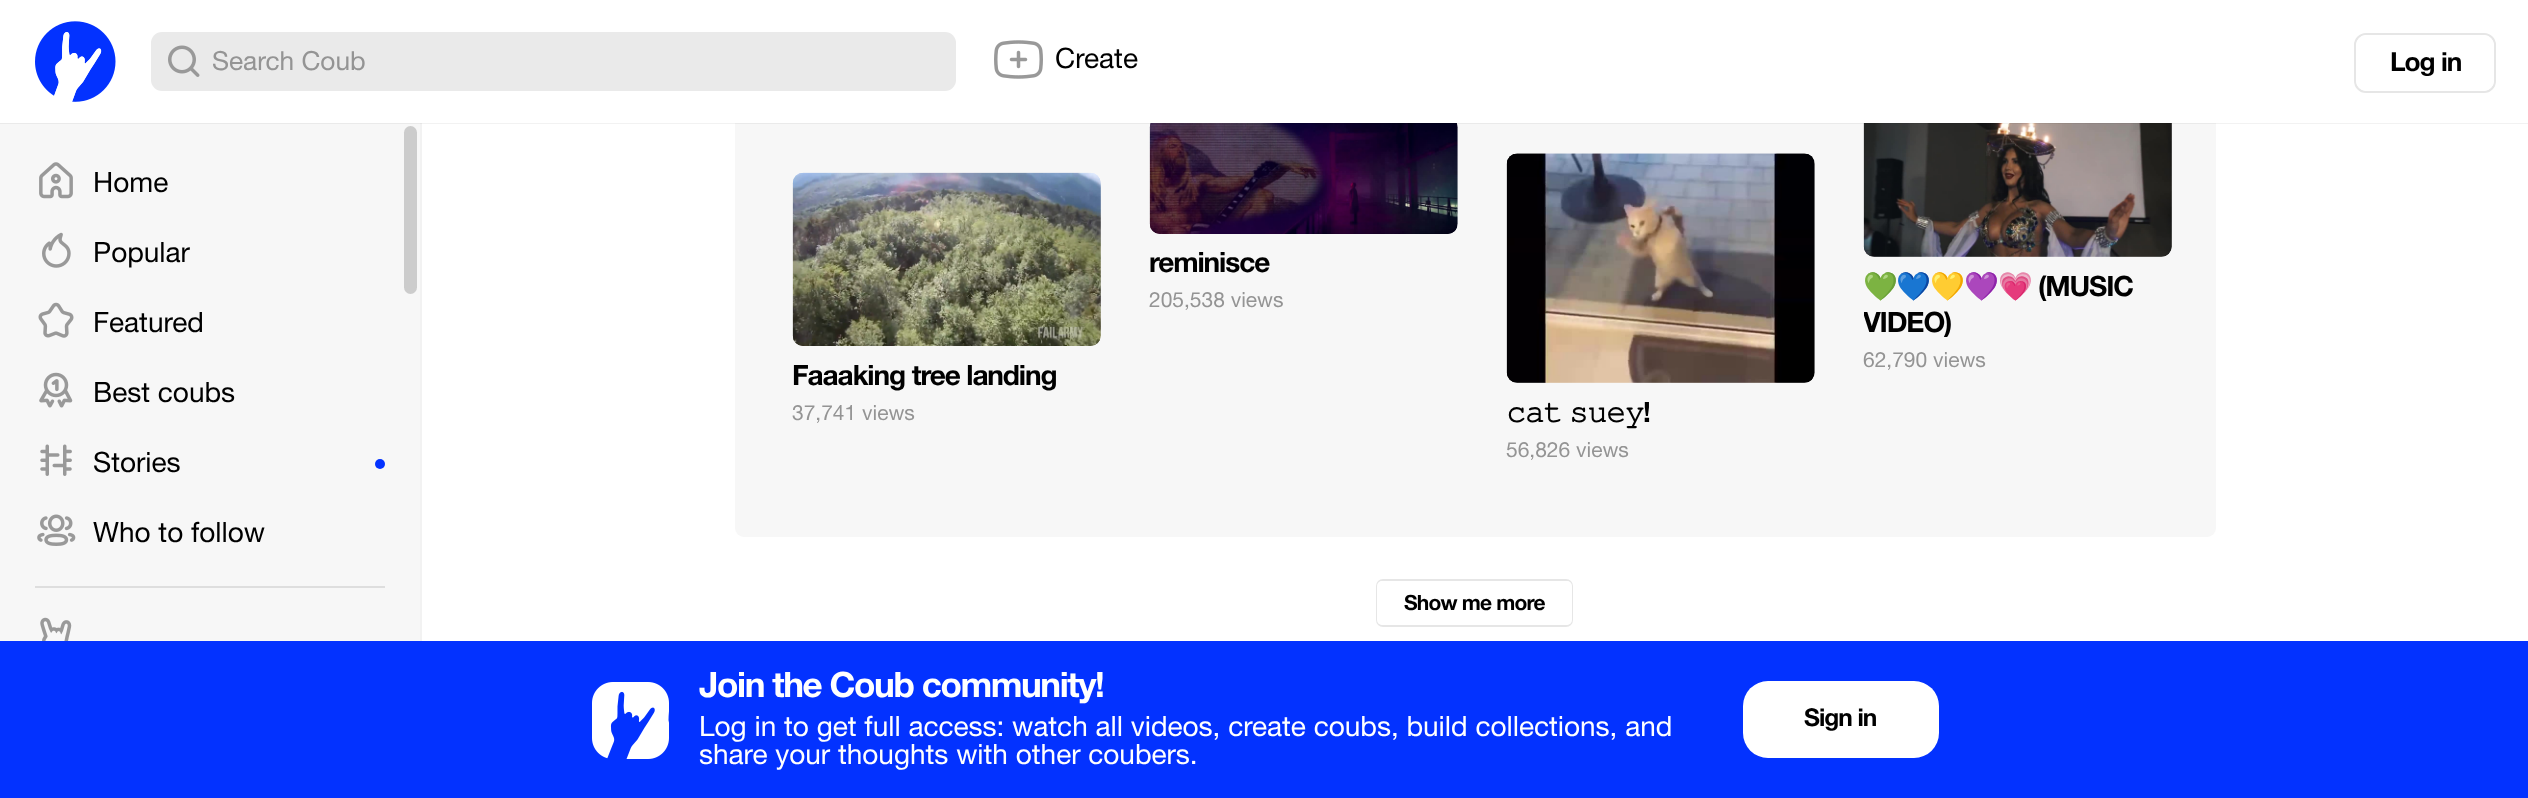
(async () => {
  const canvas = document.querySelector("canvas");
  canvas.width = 2528;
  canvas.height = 798;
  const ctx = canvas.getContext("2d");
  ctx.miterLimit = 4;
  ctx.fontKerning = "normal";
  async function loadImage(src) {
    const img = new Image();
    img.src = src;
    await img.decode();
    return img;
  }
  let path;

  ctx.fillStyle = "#ffffff";
  ctx.fillRect(0, 0, 2528, 798);
  ctx.strokeStyle = "#f2f2f2";
  ctx.lineWidth = 2;
  ctx.strokeRect(-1, -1, 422, 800);
  ctx.fillStyle = "#f7f7f7";
  ctx.fillRect(0, 123, 420, 518);
  ctx.beginPath();
  ctx.roundRect(735, -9, 1481, 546, 9);
  ctx.fill();
  ctx.drawImage(await loadImage("img/11.png"), 1149, 123, 309, 111);
  ctx.drawImage(await loadImage("img/12.png"), 1149, 123, 307, 111);
  ctx.drawImage(await loadImage("img/13.png"), 1863, 123, 309, 134);
  ctx.drawImage(await loadImage("img/14.png"), 1863, 123, 309, 134);
  ctx.fillStyle = "rgba(0, 0, 0, 0.05)";
  path = new Path2D("M0 122V124H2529V2V122Z");
  ctx.fill(path);
  ctx.fillStyle = "#ffffff";
  ctx.fillRect(0, 0, 2528, 123);
  ctx.drawImage(await loadImage("img/1.png"), 35, 21, 81, 81);
  ctx.fillStyle = "#eaeaea";
  ctx.beginPath();
  ctx.roundRect(151, 32, 805, 59, 11);
  ctx.fill();
  ctx.drawImage(await loadImage("img/2.png"), 168, 45, 32, 32);
  ctx.drawImage(await loadImage("img/3.png"), 994, 40, 49, 39);
  ctx.beginPath();
  ctx.roundRect(2355, 34, 140, 58, 11);
  ctx.strokeStyle = "#e6e6e6";
  ctx.stroke();
  ctx.fillStyle = "#ffffff";
  ctx.beginPath();
  ctx.roundRect(2356, 35, 138, 56, 11);
  ctx.fill();
  ctx.drawImage(await loadImage("img/4.png"), 39, 162, 34, 37);
  ctx.drawImage(await loadImage("img/5.png"), 42, 232, 29, 36);
  ctx.drawImage(await loadImage("img/6.png"), 38, 302, 36, 36);
  ctx.drawImage(await loadImage("img/7.png"), 39, 372, 34, 36);
  ctx.drawImage(await loadImage("img/8.png"), 40, 444, 32, 32);
  ctx.fillStyle = "#0332ff";
  ctx.beginPath();
  ctx.arc(380, 464, 5, 0, Math.PI * 2);
  ctx.fill();
  ctx.drawImage(await loadImage("img/9.png"), 37, 514, 39, 32);
  ctx.fillStyle = "#dedede";
  ctx.fillRect(35, 586, 350, 2);
  ctx.drawImage(await loadImage("img/10.png"), 40, 617, 32, 24);
  ctx.fillStyle = "#cccccc";
  ctx.beginPath();
  ctx.roundRect(404, 126, 13, 168, 6.5);
  ctx.fill();
  ctx.drawImage(await loadImage("img/15.png"), 792, 172, 309, 174);
  ctx.drawImage(await loadImage("img/16.png"), 792, 172, 309, 174);
  ctx.drawImage(await loadImage("img/17.png"), 1506, 153, 309, 230);
  ctx.drawImage(await loadImage("img/18.png"), 1506, 153, 307, 230);
  ctx.beginPath();
  ctx.roundRect(1377, 580, 195, 46, 6);
  ctx.stroke();
  ctx.fillStyle = "#ffffff";
  ctx.beginPath();
  ctx.roundRect(1377, 581, 195, 44, 5);
  ctx.fill();
  ctx.fillStyle = "#0332ff";
  ctx.fillRect(0, 641, 2528, 157);
  ctx.drawImage(await loadImage("img/19.png"), 592, 682, 77, 77);
  ctx.fillStyle = "#ffffff";
  ctx.beginPath();
  ctx.roundRect(1743, 681, 196, 77, 25);
  ctx.fill();
  ctx.font = "26.25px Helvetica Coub";
  ctx.fillStyle = "#949494";
  ctx.fillText("Search Coub", 212, 70);
  ctx.font = "28px Helvetica Coub";
  ctx.fillStyle = "#000000";
  ctx.fillText("Create", 1055, 68);
  ctx.letterSpacing = "-1px";
  ctx.font = "bold 26.25px Helvetica Coub";
  ctx.fillText("Log in", 2390, 71);
  ctx.letterSpacing = "0px";
  ctx.font = "28px Helvetica Coub";
  for (const [text, x, y] of [
    ["Home", 93, 192],
    ["Popular", 93, 262],
    ["Featured", 93, 332],
    ["Best coubs", 93, 402],
    ["Stories", 93, 472],
    ["Who to follow", 93, 542],
  ]) {
    ctx.fillText(text, x, y);
  }
  ctx.letterSpacing = "-1.1px";
  ctx.font = "bold 28px Helvetica Coub";
  ctx.fillText("reminisce", 1149, 272);
  ctx.letterSpacing = "0px";
  ctx.font = "21px Helvetica Coub";
  ctx.fillStyle = "#949494";
  ctx.fillText("205,538 views", 1149, 307);
  ctx.save();
  ctx.beginPath();
  ctx.rect(1864, 270, 308, 71);
  ctx.clip();
  ctx.letterSpacing = "-1.1px";
  ctx.font = "bold 28px Noto Color Emoji";
  ctx.fillStyle = "#000000";
  ctx.fillText("💚💙💛💜💗", 1863, 296);
  ctx.restore();
  ctx.letterSpacing = "-1.1px";
  ctx.font = "bold 28px Helvetica Coub";
  ctx.fillStyle = "#000000";
  ctx.fillText("(MUSIC", 2038, 296);
  ctx.save();
  ctx.beginPath();
  ctx.rect(1864, 270, 308, 71);
  ctx.clip();
  ctx.fillText("VIDEO)", 1863, 332);
  ctx.restore();
  ctx.letterSpacing = "0px";
  ctx.font = "21px Helvetica Coub";
  ctx.fillStyle = "#949494";
  ctx.fillText("62,790 views", 1863, 367);
  ctx.letterSpacing = "-1.1px";
  ctx.font = "bold 28px Helvetica Coub";
  ctx.fillStyle = "#000000";
  ctx.fillText("Faaaking tree landing", 792, 385);
  ctx.letterSpacing = "0px";
  ctx.font = "21px Helvetica Coub";
  ctx.fillStyle = "#949494";
  ctx.fillText("37,741 views", 792, 420);
  ctx.letterSpacing = "-1.1px";
  ctx.wordSpacing = "1px";
  ctx.font = "bold 28px FreeSerif";
  ctx.fillStyle = "#000000";
  ctx.fillText("𝚌𝚊𝚝 𝚜𝚞𝚎𝚢", 1506, 422);
  ctx.wordSpacing = "0px";
  ctx.font = "bold 28px Helvetica Coub";
  ctx.fillText("!", 1643, 422);
  ctx.letterSpacing = "0px";
  ctx.font = "21px Helvetica Coub";
  ctx.fillStyle = "#949494";
  ctx.fillText("56,826 views", 1506, 457);
  ctx.letterSpacing = "-0.8px";
  ctx.font = "bold 21px Helvetica Coub";
  ctx.fillStyle = "#000000";
  ctx.fillText("Show me more", 1404, 610);
  ctx.letterSpacing = "-1.4px";
  ctx.font = "bold 35px Helvetica Coub";
  ctx.fillStyle = "#ffffff";
  ctx.fillText("Join the Coub community!", 699, 697);
  ctx.letterSpacing = "0px";
  ctx.font = "28px Helvetica Coub";
  ctx.fillText("Log in to get full access: watch all videos, create coubs, build collections, and", 699, 736);
  ctx.fillText("share your thoughts with other coubers.", 699, 764);
  ctx.letterSpacing = "-1px";
  ctx.font = "bold 24.5px Helvetica Coub";
  ctx.fillStyle = "#000000";
  ctx.fillText("Sign in", 1804, 726);
})();
